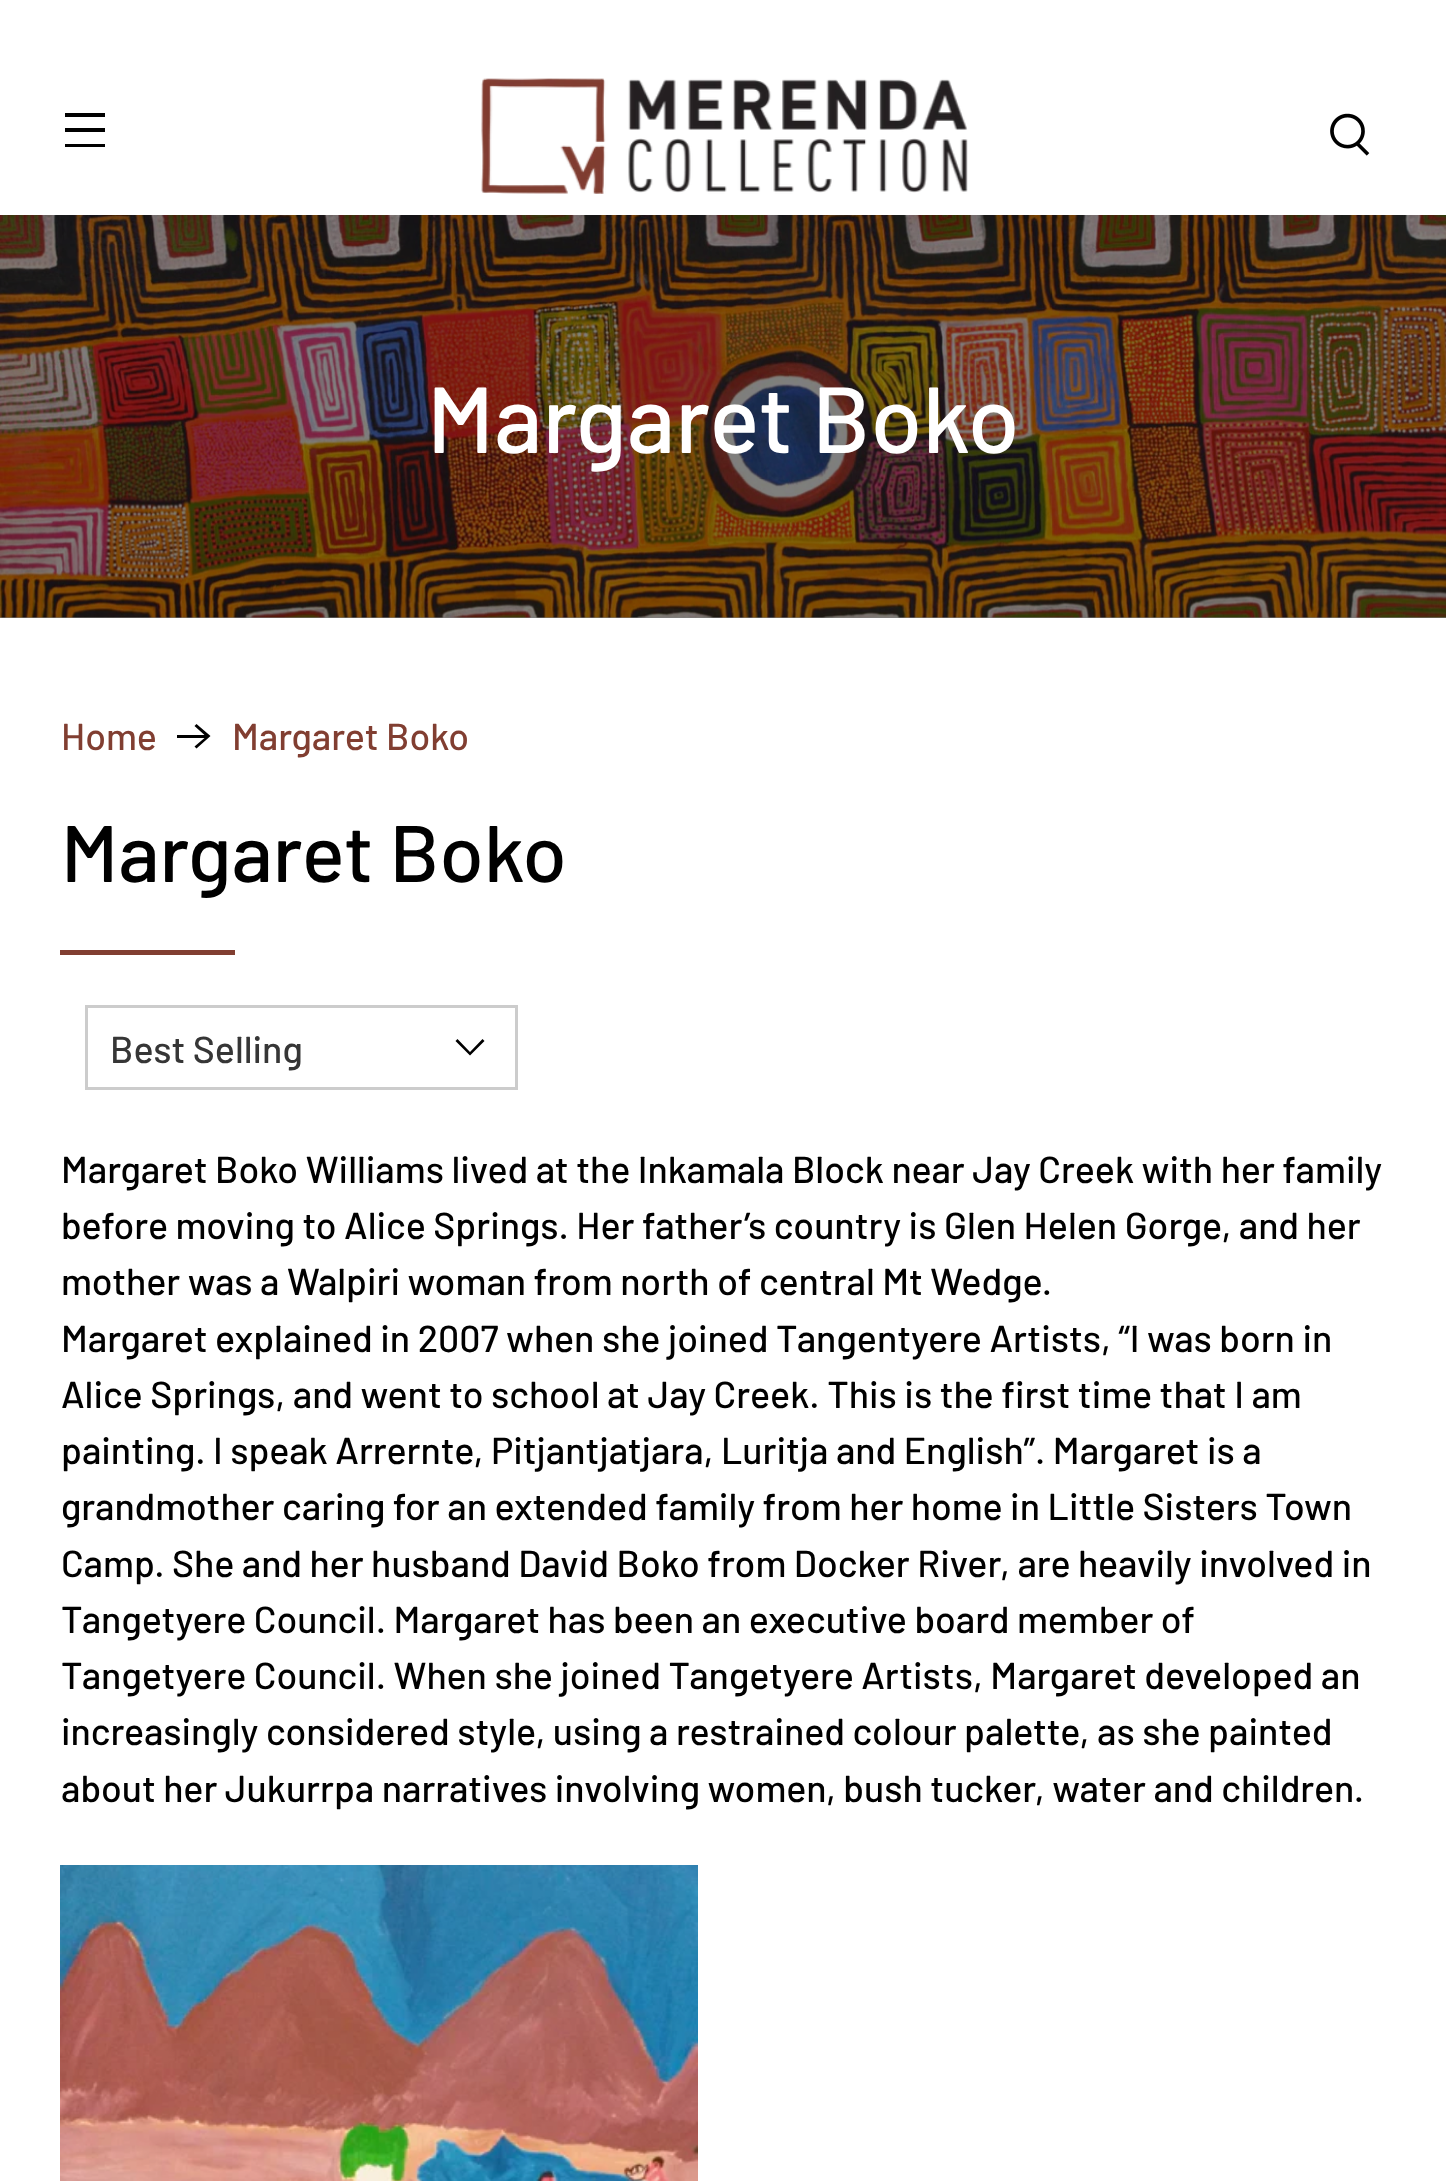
(async () => {
  const canvas = document.querySelector("canvas");
  canvas.width = 1446;
  canvas.height = 2181;
  const ctx = canvas.getContext("2d");
  ctx.miterLimit = 4;
  ctx.fontKerning = "normal";
  async function loadImage(src) {
    const img = new Image();
    img.src = src;
    await img.decode();
    return img;
  }
  let path;

  ctx.fillStyle = "#ffffff";
  ctx.fillRect(0, 0, 1446, 2181);
  for (const [x, y, w, h, color] of [
    [0, 617, 1446, 1, "#808080"],
    [65, 113, 40, 4, "#000000"],
    [65, 128, 40, 4, "#000000"],
    [65, 144, 40, 3, "#000000"],
  ]) {
    ctx.fillStyle = color;
    ctx.fillRect(x, y, w, h);
  }
  ctx.drawImage(await loadImage("img/1.png"), 481, 78, 487, 116);
  ctx.drawImage(await loadImage("img/2.png"), 1330, 113, 40, 43);
  ctx.drawImage(await loadImage("img/3.png"), 0, 215, 1446, 403);
  path = new Path2D("M196.5 724L194.5 726L204.5 735H177V738H204.5L194.5 746.5L196.5 748.5L210.5 736Z");
  ctx.fill(path);
  ctx.fillStyle = "#813e31";
  ctx.fillRect(60, 950, 175, 5);
  ctx.strokeStyle = "#cccccc";
  ctx.lineWidth = 3;
  ctx.strokeRect(86.5, 1006.5, 430, 82);
  ctx.fillStyle = "#000000";
  path = new Path2D("M470 1055.5L455.5 1041L457.5 1039L470 1052L482.5 1039L484.5 1041Z");
  ctx.fill(path);
  ctx.drawImage(await loadImage("img/4.png"), 60, 1865, 638, 316);
  ctx.font = "500 93.75px Barlow";
  ctx.fillStyle = "#ffffff";
  ctx.fillText("Margaret Boko", 427, 453);
  ctx.font = "500 37.5px Barlow";
  ctx.fillStyle = "#813e31";
  ctx.fillText("Home", 61, 750);
  ctx.fillText("Margaret Boko", 232, 750);
  ctx.font = "500 80px Barlow";
  ctx.fillStyle = "#000000";
  ctx.fillText("Margaret Boko", 61, 882);
  ctx.font = "500 37.5px Barlow";
  ctx.fillStyle = "#363636";
  ctx.fillText("Best Selling", 110, 1063);
  ctx.fillStyle = "#000000";
  for (const [text, x, y] of [
    ["Margaret Boko Williams lived at the Inkamala Block near Jay Creek with her family", 61, 1183],
    ["before moving to Alice Springs. Her father’s country is Glen Helen Gorge, and her", 61, 1239],
    ["mother was a Walpiri woman from north of central Mt Wedge.", 61, 1295],
    ["Margaret explained in 2007 when she joined Tangentyere Artists, “I was born in", 61, 1352],
    ["Alice Springs, and went to school at Jay Creek. This is the first time that I am", 61, 1408],
    ["painting. I speak Arrernte, Pitjantjatjara, Luritja and English”. Margaret is a", 61, 1464],
    ["grandmother caring for an extended family from her home in Little Sisters Town", 61, 1520],
    ["Camp. She and her husband David Boko from Docker River, are heavily involved in", 61, 1577],
    ["Tangetyere Council. Margaret has been an executive board member of", 61, 1633],
    ["Tangetyere Council. When she joined Tangetyere Artists, Margaret developed an", 61, 1689],
    ["increasingly considered style, using a restrained colour palette, as she painted", 61, 1745],
    ["about her Jukurrpa narratives involving women, bush tucker, water and children.", 61, 1802],
  ]) {
    ctx.fillText(text, x, y);
  }
})();
